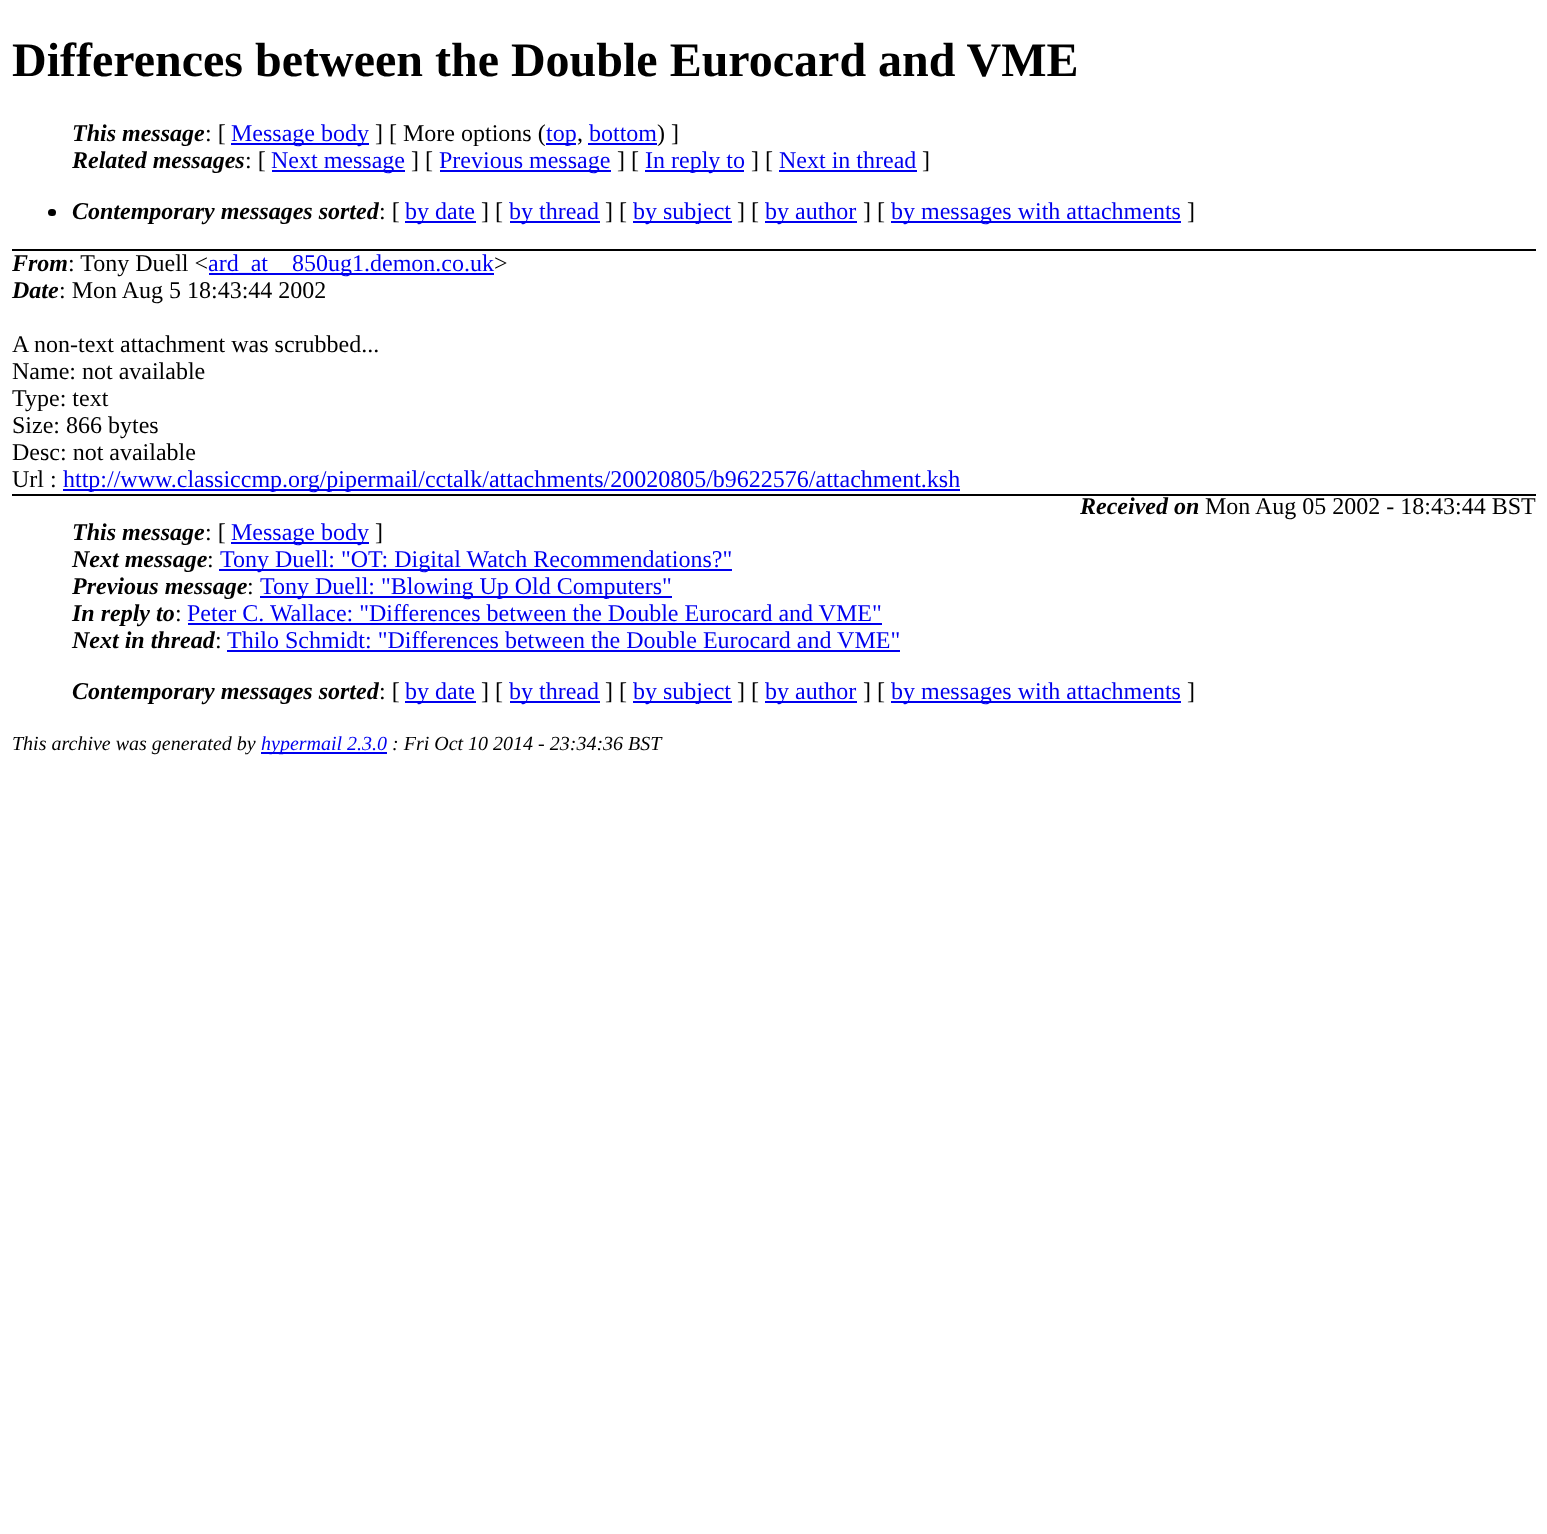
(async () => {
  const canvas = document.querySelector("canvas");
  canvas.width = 1547;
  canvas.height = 1534;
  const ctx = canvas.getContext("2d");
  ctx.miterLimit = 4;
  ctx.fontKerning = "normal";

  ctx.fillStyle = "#ffffff";
  ctx.fillRect(0, 0, 1547, 1534);
  for (const [x, y, w, h, color] of [
    [12, 249, 1524, 2, "#000000"],
    [231, 143, 138, 2, "#0000ee"],
    [546, 143, 30, 2, "#0000ee"],
    [588, 143, 69, 2, "#0000ee"],
    [272, 170, 133, 2, "#0000ee"],
    [440, 170, 171, 2, "#0000ee"],
    [645, 170, 99, 2, "#0000ee"],
    [779, 170, 138, 2, "#0000ee"],
  ]) {
    ctx.fillStyle = color;
    ctx.fillRect(x, y, w, h);
  }
  ctx.fillStyle = "#000000";
  ctx.beginPath();
  ctx.roundRect(48, 209, 8, 7, 3.5);
  ctx.fill();
  for (const [x, y, w, h, color] of [
    [405, 221, 71, 2, "#0000ee"],
    [510, 221, 90, 2, "#0000ee"],
    [633, 221, 99, 2, "#0000ee"],
    [765, 221, 92, 2, "#0000ee"],
    [891, 221, 290, 2, "#0000ee"],
    [209, 273, 285, 2, "#0000ee"],
    [63, 489, 897, 2, "#0000ee"],
    [12, 494, 1524, 2, "#000000"],
    [231, 542, 138, 2, "#0000ee"],
    [219, 569, 513, 2, "#0000ee"],
    [260, 596, 412, 2, "#0000ee"],
    [188, 623, 694, 2, "#0000ee"],
    [227, 650, 673, 2, "#0000ee"],
    [405, 701, 71, 2, "#0000ee"],
    [510, 701, 90, 2, "#0000ee"],
    [633, 701, 99, 2, "#0000ee"],
    [765, 701, 92, 2, "#0000ee"],
    [891, 701, 290, 2, "#0000ee"],
    [261, 752, 126, 2, "#0000ee"],
  ]) {
    ctx.fillStyle = color;
    ctx.fillRect(x, y, w, h);
  }
  ctx.font = "bold 48px Liberation Serif";
  ctx.fillStyle = "#000000";
  ctx.fillText("Differences between the Double Eurocard and VME", 12, 76);
  ctx.font = "italic bold 24px Liberation Serif";
  ctx.fillText("This message", 72, 141);
  ctx.font = "24px Liberation Serif";
  ctx.fillText(": [", 205, 141);
  ctx.fillStyle = "#0000ee";
  ctx.fillText("Message body", 231, 141);
  ctx.fillStyle = "#000000";
  ctx.fillText("] [ More options (", 375, 141);
  ctx.fillStyle = "#0000ee";
  ctx.fillText("top", 546, 141);
  ctx.fillStyle = "#000000";
  ctx.fillText(",", 577, 141);
  ctx.fillStyle = "#0000ee";
  ctx.fillText("bottom", 589, 141);
  ctx.fillStyle = "#000000";
  ctx.fillText(") ]", 657, 141);
  ctx.font = "italic bold 24px Liberation Serif";
  ctx.fillText("Related messages", 72, 168);
  ctx.font = "24px Liberation Serif";
  ctx.fillText(": [", 245, 168);
  ctx.fillStyle = "#0000ee";
  ctx.fillText("Next message", 271, 168);
  ctx.fillStyle = "#000000";
  ctx.fillText("] [", 411, 168);
  ctx.fillStyle = "#0000ee";
  ctx.fillText("Previous message", 439, 168);
  ctx.fillStyle = "#000000";
  ctx.fillText("] [", 617, 168);
  ctx.fillStyle = "#0000ee";
  ctx.fillText("In reply to", 645, 168);
  ctx.fillStyle = "#000000";
  ctx.fillText("] [", 751, 168);
  ctx.fillStyle = "#0000ee";
  ctx.fillText("Next in thread", 779, 168);
  ctx.fillStyle = "#000000";
  ctx.fillText("]", 922, 168);
  ctx.font = "italic bold 24px Liberation Serif";
  ctx.fillText("Contemporary messages sorted", 72, 219);
  ctx.font = "24px Liberation Serif";
  ctx.fillText(": [", 379, 219);
  ctx.fillStyle = "#0000ee";
  ctx.fillText("by date", 405, 219);
  ctx.fillStyle = "#000000";
  ctx.fillText("] [", 481, 219);
  ctx.fillStyle = "#0000ee";
  ctx.fillText("by thread", 509, 219);
  ctx.fillStyle = "#000000";
  ctx.fillText("] [", 605, 219);
  ctx.fillStyle = "#0000ee";
  ctx.fillText("by subject", 633, 219);
  ctx.fillStyle = "#000000";
  ctx.fillText("] [", 737, 219);
  ctx.fillStyle = "#0000ee";
  ctx.fillText("by author", 765, 219);
  ctx.fillStyle = "#000000";
  ctx.fillText("] [", 863, 219);
  ctx.fillStyle = "#0000ee";
  ctx.fillText("by messages with attachments", 891, 219);
  ctx.fillStyle = "#000000";
  ctx.fillText("]", 1187, 219);
  ctx.font = "italic bold 24px Liberation Serif";
  ctx.fillText("From", 12, 271);
  ctx.font = "24px Liberation Serif";
  ctx.fillText(": Tony Duell <", 68, 271);
  ctx.fillStyle = "#0000ee";
  ctx.fillText("ard_at", 208, 271);
  ctx.fillText("850ug1.demon.co.uk", 292, 271);
  ctx.fillStyle = "#000000";
  ctx.fillText(">", 494, 271);
  ctx.font = "italic bold 24px Liberation Serif";
  ctx.fillText("Date", 12, 298);
  ctx.font = "24px Liberation Serif";
  for (const [text, x, y] of [
    [": Mon Aug 5 18:43:44 2002", 59, 298],
    ["A non-text attachment was scrubbed...", 12, 352],
    ["Name: not available", 12, 379],
    ["Type: text", 12, 406],
    ["Size: 866 bytes", 12, 433],
    ["Desc: not available", 12, 460],
    ["Url :", 12, 487],
  ]) {
    ctx.fillText(text, x, y);
  }
  ctx.fillStyle = "#0000ee";
  ctx.fillText("http://www.classiccmp.org/pipermail/cctalk/attachments/20020805/b9622576/attachment.ksh", 63, 487);
  ctx.font = "italic bold 24px Liberation Serif";
  ctx.fillStyle = "#000000";
  ctx.fillText("Received on", 1080, 514);
  ctx.font = "24px Liberation Serif";
  ctx.fillText("Mon Aug 05 2002 - 18:43:44 BST", 1205, 514);
  ctx.font = "italic bold 24px Liberation Serif";
  ctx.fillText("This message", 72, 540);
  ctx.font = "24px Liberation Serif";
  ctx.fillText(": [", 205, 540);
  ctx.fillStyle = "#0000ee";
  ctx.fillText("Message body", 231, 540);
  ctx.fillStyle = "#000000";
  ctx.fillText("]", 375, 540);
  ctx.font = "italic bold 24px Liberation Serif";
  ctx.fillText("Next message", 72, 567);
  ctx.font = "24px Liberation Serif";
  ctx.fillText(":", 207, 567);
  ctx.fillStyle = "#0000ee";
  ctx.fillText("Tony Duell: \"OT: Digital Watch Recommendations?\"", 220, 567);
  ctx.font = "italic bold 24px Liberation Serif";
  ctx.fillStyle = "#000000";
  ctx.fillText("Previous message", 72, 594);
  ctx.font = "24px Liberation Serif";
  ctx.fillText(":", 247, 594);
  ctx.fillStyle = "#0000ee";
  ctx.fillText("Tony Duell: \"Blowing Up Old Computers\"", 260, 594);
  ctx.font = "italic bold 24px Liberation Serif";
  ctx.fillStyle = "#000000";
  ctx.fillText("In reply to", 72, 621);
  ctx.font = "24px Liberation Serif";
  ctx.fillText(":", 175, 621);
  ctx.fillStyle = "#0000ee";
  ctx.fillText("Peter C. Wallace: \"Differences between the Double Eurocard and VME\"", 187, 621);
  ctx.font = "italic bold 24px Liberation Serif";
  ctx.fillStyle = "#000000";
  ctx.fillText("Next in thread", 72, 648);
  ctx.font = "24px Liberation Serif";
  ctx.fillText(":", 215, 648);
  ctx.fillStyle = "#0000ee";
  ctx.fillText("Thilo Schmidt: \"Differences between the Double Eurocard and VME\"", 227, 648);
  ctx.font = "italic bold 24px Liberation Serif";
  ctx.fillStyle = "#000000";
  ctx.fillText("Contemporary messages sorted", 72, 699);
  ctx.font = "24px Liberation Serif";
  ctx.fillText(": [", 379, 699);
  ctx.fillStyle = "#0000ee";
  ctx.fillText("by date", 405, 699);
  ctx.fillStyle = "#000000";
  ctx.fillText("] [", 481, 699);
  ctx.fillStyle = "#0000ee";
  ctx.fillText("by thread", 509, 699);
  ctx.fillStyle = "#000000";
  ctx.fillText("] [", 605, 699);
  ctx.fillStyle = "#0000ee";
  ctx.fillText("by subject", 633, 699);
  ctx.fillStyle = "#000000";
  ctx.fillText("] [", 737, 699);
  ctx.fillStyle = "#0000ee";
  ctx.fillText("by author", 765, 699);
  ctx.fillStyle = "#000000";
  ctx.fillText("] [", 863, 699);
  ctx.fillStyle = "#0000ee";
  ctx.fillText("by messages with attachments", 891, 699);
  ctx.fillStyle = "#000000";
  ctx.fillText("]", 1187, 699);
  ctx.font = "italic 20px Liberation Serif";
  ctx.fillText("This archive was generated by", 12, 750);
  ctx.fillStyle = "#0000ee";
  ctx.fillText("hypermail 2.3.0", 261, 750);
  ctx.fillStyle = "#000000";
  ctx.fillText(": Fri Oct 10 2014 - 23:34:36 BST", 392, 750);
})();
